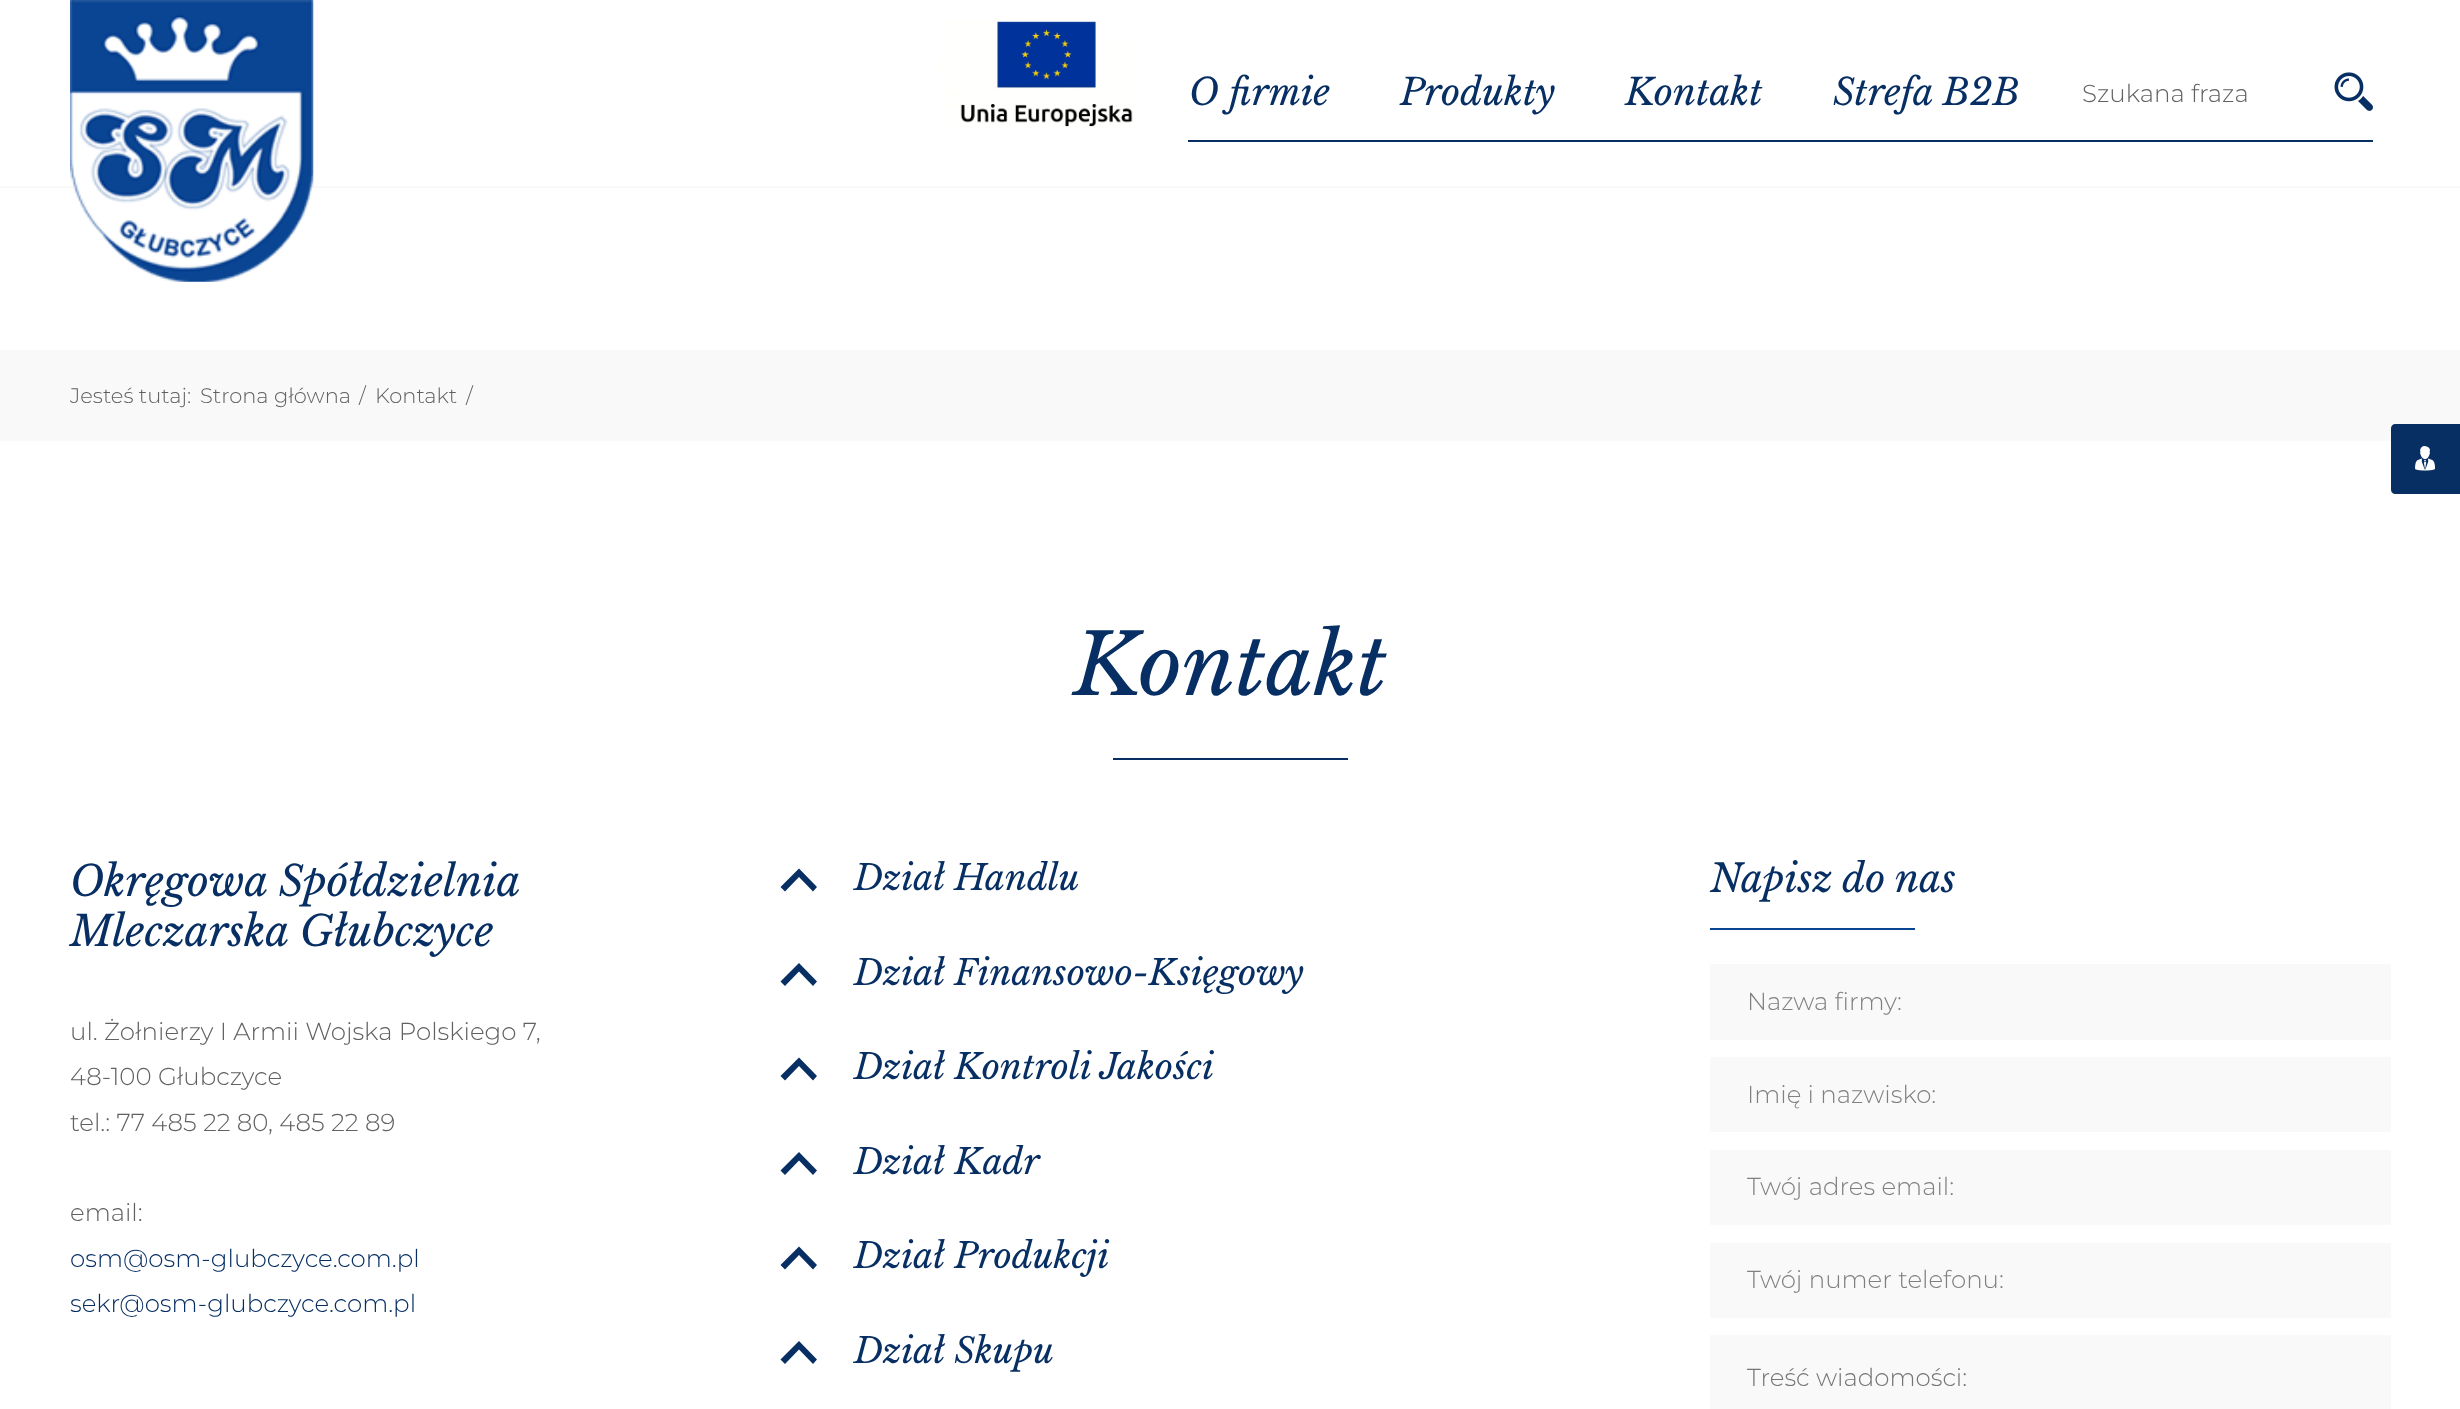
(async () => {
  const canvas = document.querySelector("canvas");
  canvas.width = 2460;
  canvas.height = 1409;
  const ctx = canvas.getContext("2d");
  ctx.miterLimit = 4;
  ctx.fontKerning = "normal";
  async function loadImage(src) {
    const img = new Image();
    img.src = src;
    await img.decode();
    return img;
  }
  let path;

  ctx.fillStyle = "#ffffff";
  ctx.fillRect(0, 0, 2460, 1409);
  ctx.fillStyle = "#f9f9f9";
  ctx.fillRect(0, 186, 2460, 2);
  ctx.drawImage(await loadImage("img/1.png"), 70, 0, 244, 282);
  ctx.drawImage(await loadImage("img/2.png"), 940, 20, 193, 108);
  ctx.drawImage(await loadImage("img/3.png"), 2334, 72, 39, 39);
  ctx.fillStyle = "#082f63";
  ctx.fillRect(1188, 140, 1185, 2);
  ctx.fillStyle = "#f9f9f9";
  ctx.fillRect(0, 350, 2460, 91);
  ctx.fillStyle = "#082f63";
  path = new Path2D("M2395 424H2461V494H2395C2393 494 2391 492 2391 490V428C2391 426 2393 424 2395 424Z");
  ctx.fill(path);
  ctx.drawImage(await loadImage("img/4.png"), 2415, 446, 21, 25);
  ctx.fillRect(1113, 758, 235, 2);
  path = new Path2D("M799 868.5L780.5 887L785 891.5L799 877L813 891.5L817 887Z");
  ctx.fill(path);
  path = new Path2D("M799 963L780.5 981.5L785 986L799 971.5L813 986L817 981.5Z");
  ctx.fill(path);
  path = new Path2D("M799 1057.5L780.5 1076L785 1080.5L799 1066L813 1080.5L817 1076Z");
  ctx.fill(path);
  path = new Path2D("M799 1152L780.5 1170.5L785 1175L799 1160.5L813 1175L817 1170.5Z");
  ctx.fill(path);
  path = new Path2D("M799 1246.5L780.5 1265L785 1269.5L799 1255L813 1269.5L817 1265Z");
  ctx.fill(path);
  path = new Path2D("M799 1341L780.5 1359.5L785 1364L799 1349.5L813 1364L817 1359.5Z");
  ctx.fill(path);
  for (const [x, y, w, h, color] of [
    [1710, 928, 205, 2, "#0a4593"],
    [1710, 964, 681, 76, "#f9f9f9"],
    [1710, 1057, 681, 75, "#f9f9f9"],
    [1710, 1150, 681, 75, "#f9f9f9"],
    [1710, 1243, 681, 75, "#f9f9f9"],
    [1710, 1335, 681, 74, "#f9f9f9"],
  ]) {
    ctx.fillStyle = color;
    ctx.fillRect(x, y, w, h);
  }
  ctx.font = "italic 36.75px Libre Baskerville";
  ctx.fillStyle = "#082f63";
  for (const [text, x, y] of [
    ["O firmie", 1189, 105],
    ["Produkty", 1400, 105],
    ["Kontakt", 1625, 105],
    ["Strefa B2B", 1833, 105],
  ]) {
    ctx.fillText(text, x, y);
  }
  ctx.font = "300 24.5px Montserrat";
  ctx.fillStyle = "#616161";
  ctx.fillText("Szukana fraza", 2082, 102);
  ctx.font = "300 21px Montserrat";
  for (const [text, x, y] of [
    ["Jesteś tutaj:", 70, 403],
    ["Strona główna", 200, 403],
    ["/", 359, 403],
    ["Kontakt", 375, 403],
    ["/", 466, 403],
  ]) {
    ctx.fillText(text, x, y);
  }
  ctx.font = "italic 84px Libre Baskerville";
  ctx.fillStyle = "#082f63";
  ctx.fillText("Kontakt", 1073, 695);
  ctx.font = "italic 42px Libre Baskerville";
  ctx.fillText("Okręgowa Spółdzielnia", 70, 896);
  ctx.fillText("Mleczarska Głubczyce", 70, 946);
  ctx.font = "300 24.5px Montserrat";
  ctx.fillStyle = "#616161";
  for (const [text, x, y] of [
    ["ul. Żołnierzy I Armii Wojska Polskiego 7,", 70, 1040],
    ["48-100 Głubczyce", 70, 1085],
    ["tel.: 77 485 22 80, 485 22 89", 70, 1131],
    ["email:", 70, 1221],
  ]) {
    ctx.fillText(text, x, y);
  }
  ctx.fillStyle = "#082f63";
  ctx.fillText("osm@osm-glubczyce.com.pl", 70, 1267);
  ctx.fillText("sekr@osm-glubczyce.com.pl", 70, 1312);
  ctx.font = "italic 35px Libre Baskerville";
  for (const [text, x, y] of [
    ["Dział Handlu", 854, 890],
    ["Dział Finansowo-Księgowy", 854, 985],
    ["Dział Kontroli Jakości", 854, 1079],
    ["Dział Kadr", 854, 1174],
    ["Dział Produkcji", 854, 1268],
    ["Dział Skupu", 854, 1363],
  ]) {
    ctx.fillText(text, x, y);
  }
  ctx.font = "italic 38.5px Libre Baskerville";
  ctx.fillText("Napisz do nas", 1710, 892);
  ctx.font = "300 24.5px Montserrat";
  ctx.fillStyle = "#808080";
  for (const [text, x, y] of [
    ["Nazwa firmy:", 1747, 1010],
    ["Imię i nazwisko:", 1747, 1103],
    ["Twój adres email:", 1747, 1195],
    ["Twój numer telefonu:", 1747, 1288],
  ]) {
    ctx.fillText(text, x, y);
  }
  ctx.fillStyle = "#757575";
  ctx.fillText("Treść wiadomości:", 1747, 1386);
})();
